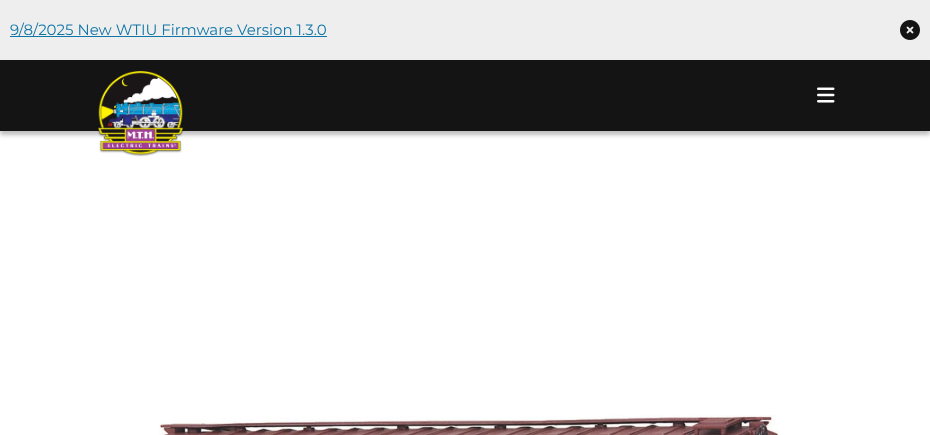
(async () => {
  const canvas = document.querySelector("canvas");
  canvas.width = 930;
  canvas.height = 435;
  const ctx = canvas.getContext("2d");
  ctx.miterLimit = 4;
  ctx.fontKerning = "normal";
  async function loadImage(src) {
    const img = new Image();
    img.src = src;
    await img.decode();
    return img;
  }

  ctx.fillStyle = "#ffffff";
  ctx.fillRect(0, 0, 930, 435);
  ctx.fillStyle = "#eeeeee";
  ctx.fillRect(0, 0, 930, 60);
  ctx.fillStyle = "#1076a8";
  ctx.fillRect(10, 36, 317, 1);
  ctx.drawImage(await loadImage("img/1.png"), 900, 20, 20, 20);
  ctx.fillStyle = "rgba(0, 0, 0, 0.25)";
  ctx.filter = "blur(2px)";
  ctx.beginPath();
  ctx.rect(0, 64, 930, 71);
  ctx.fill();
  ctx.filter = "none";
  ctx.fillStyle = "#141414";
  ctx.fillRect(0, 60, 930, 71);
  ctx.drawImage(await loadImage("img/2.png"), 97, 71, 87, 86);
  ctx.drawImage(await loadImage("img/3.png"), 817, 87, 18, 16);
  ctx.drawImage(await loadImage("img/4.png"), 159, 415, 620, 20);
  ctx.font = "15px Montserrat";
  ctx.fillStyle = "#1076a8";
  ctx.fillText("9/8/2025 New WTIU Firmware Version 1.3.0", 10, 35);
})();
